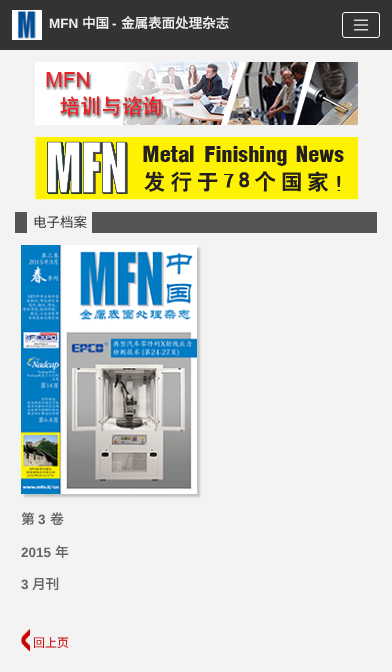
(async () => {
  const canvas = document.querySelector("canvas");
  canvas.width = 392;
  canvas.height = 672;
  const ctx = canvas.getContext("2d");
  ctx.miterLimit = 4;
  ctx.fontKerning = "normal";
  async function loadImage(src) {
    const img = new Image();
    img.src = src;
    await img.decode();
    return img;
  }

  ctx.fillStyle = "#f3f3f3";
  ctx.fillRect(0, 0, 392, 672);
  ctx.fillStyle = "#333333";
  ctx.fillRect(0, 0, 392, 50);
  ctx.drawImage(await loadImage("img/1.png"), 12, 10, 30, 30);
  ctx.beginPath();
  ctx.roundRect(342.5, 12.5, 37, 25, 2.5);
  ctx.strokeStyle = "#ffffff";
  ctx.stroke();
  ctx.drawImage(await loadImage("img/2.png"), 353, 19, 16, 12);
  ctx.drawImage(await loadImage("img/3.png"), 35, 62, 323, 63);
  ctx.drawImage(await loadImage("img/4.png"), 35, 137, 323, 63);
  ctx.fillStyle = "#555555";
  ctx.fillRect(15, 212, 362, 21);
  ctx.fillStyle = "#f3f3f3";
  ctx.fillRect(27, 212, 65, 21);
  ctx.fillStyle = "rgba(51, 55, 58, 0.25)";
  ctx.filter = "blur(1px)";
  ctx.beginPath();
  ctx.rect(24, 248, 176, 249);
  ctx.fill();
  ctx.filter = "none";
  ctx.drawImage(await loadImage("img/5.png"), 21, 245, 176, 249);
  ctx.fillStyle = "#cc0000";
  ctx.fillRect(21, 629, 9, 22);
  ctx.drawImage(await loadImage("img/6.png"), 21, 629, 9, 23);
  ctx.font = "bold 13.5px Liberation Sans";
  ctx.fillStyle = "#f1f1f1";
  ctx.fillText("MFN", 49, 28);
  ctx.font = "bold 13.5px Noto Sans CJK SC";
  ctx.fillText("中国", 82, 28);
  ctx.font = "bold 13.5px Liberation Sans";
  ctx.fillText("-", 112, 28);
  ctx.font = "bold 13.5px Noto Sans CJK SC";
  ctx.fillText("金属表面处理杂志", 121, 28);
  ctx.font = "13.5px Noto Sans CJK SC";
  ctx.fillStyle = "#333333";
  ctx.fillText("电子档案", 33, 227);
  ctx.font = "bold 13.5px Noto Sans CJK SC";
  ctx.fillStyle = "#666666";
  ctx.fillText("第", 21, 524);
  ctx.font = "bold 13.5px Liberation Sans";
  ctx.fillText("3", 38, 524);
  ctx.font = "bold 13.5px Noto Sans CJK SC";
  ctx.fillText("卷", 50, 524);
  ctx.font = "bold 13.5px Liberation Sans";
  ctx.fillText("2015", 21, 557);
  ctx.font = "bold 13.5px Noto Sans CJK SC";
  ctx.fillText("年", 55, 557);
  ctx.font = "bold 13.5px Liberation Sans";
  ctx.fillText("3", 21, 589);
  ctx.font = "bold 13.5px Noto Sans CJK SC";
  ctx.fillText("月刊", 32, 589);
  ctx.font = "12px Noto Sans CJK SC";
  ctx.fillStyle = "#cc0000";
  ctx.fillText("回上页", 33, 647);
})();
